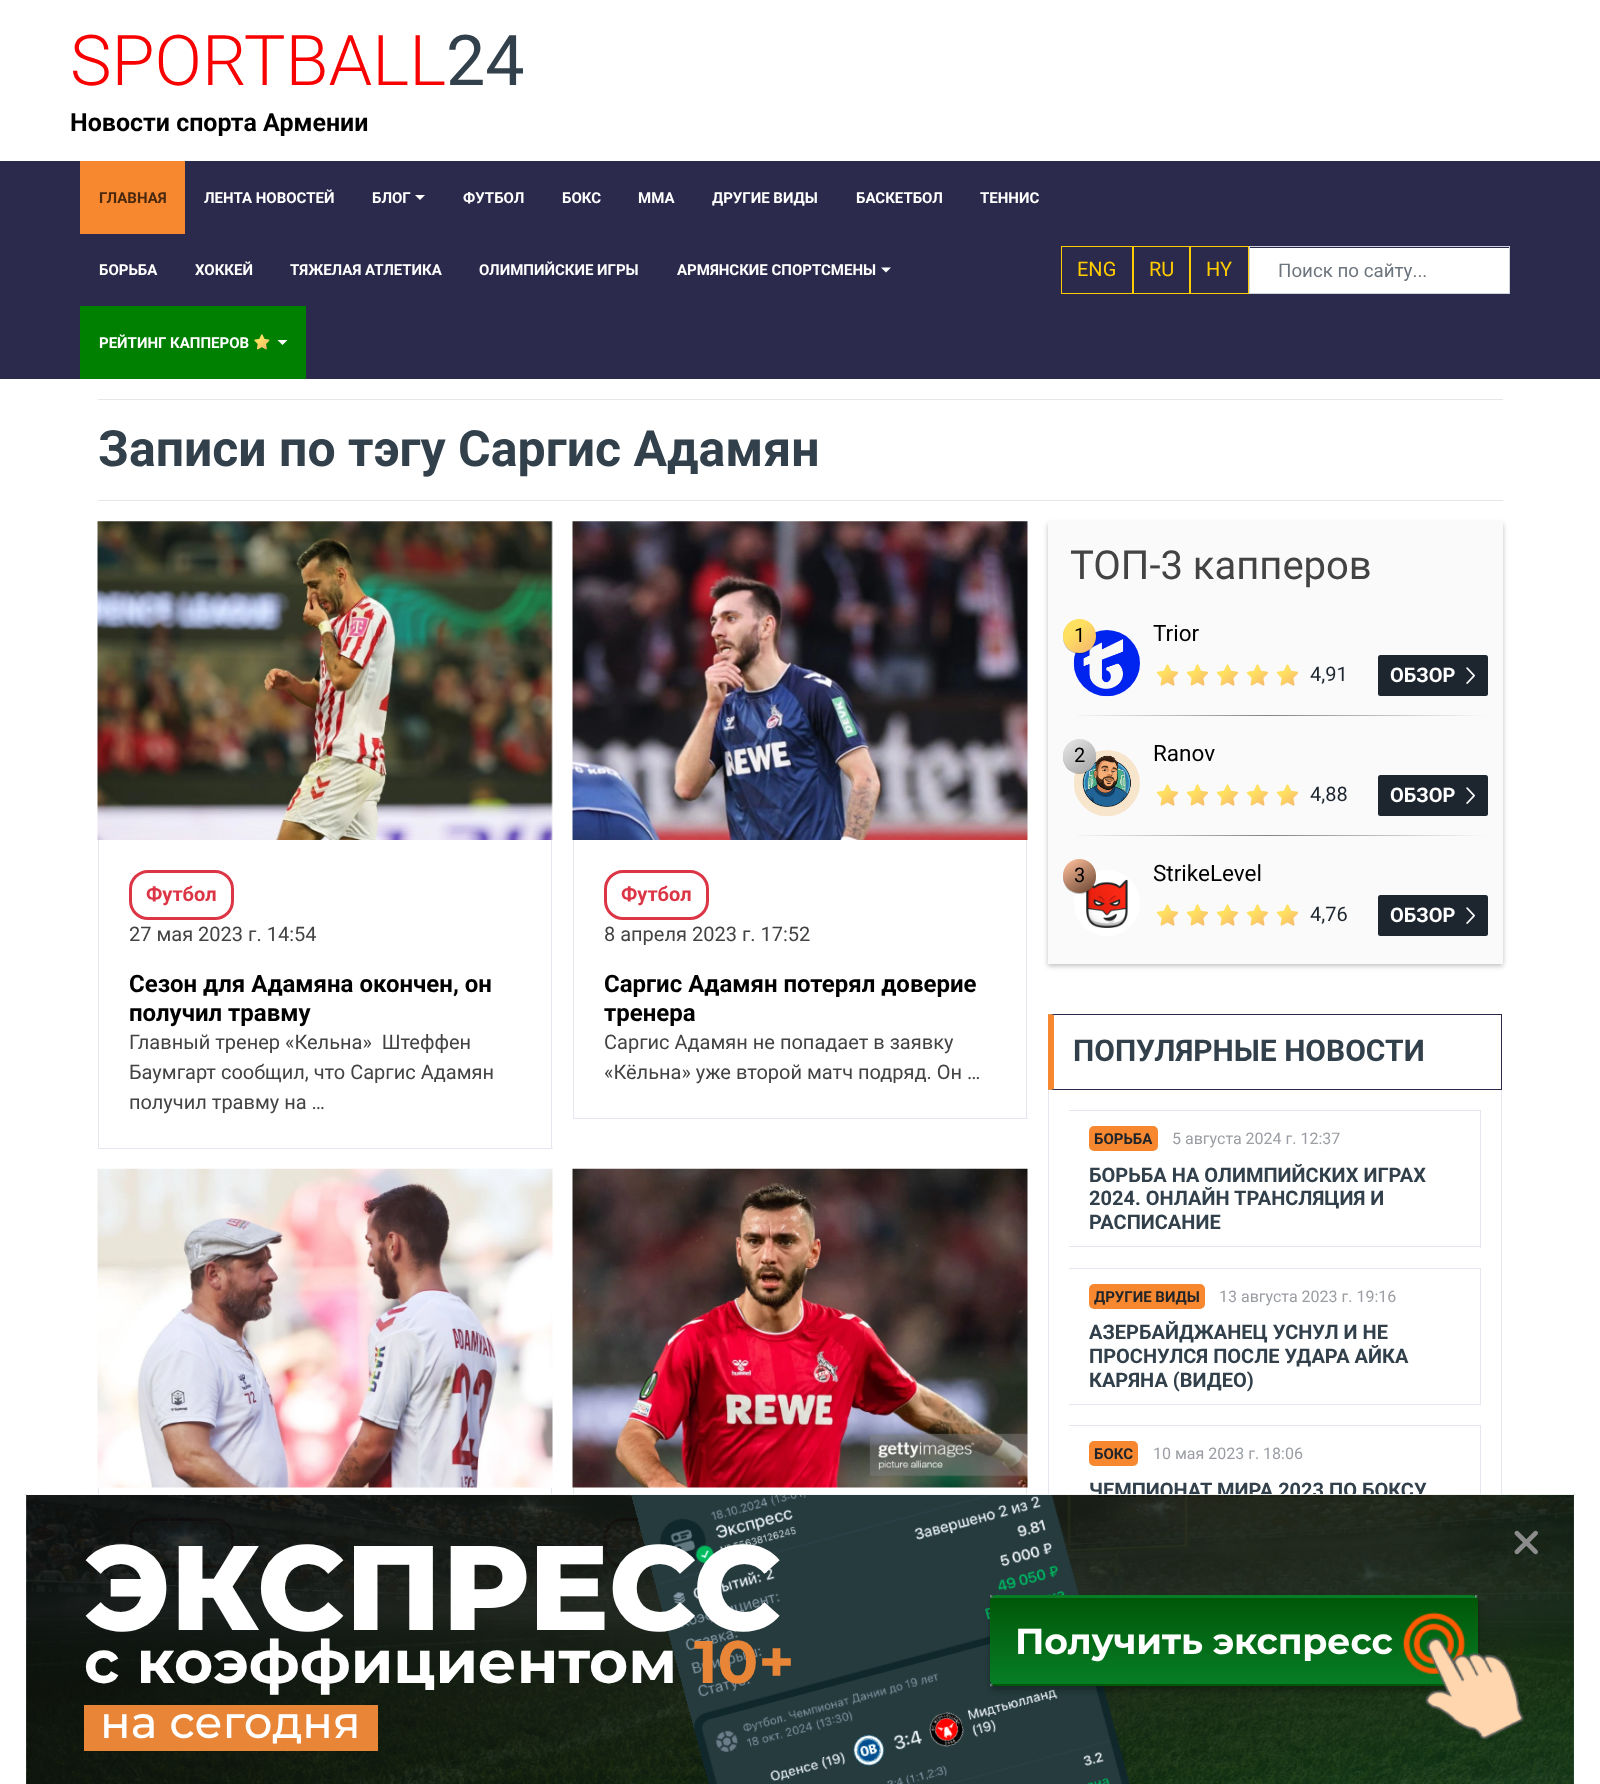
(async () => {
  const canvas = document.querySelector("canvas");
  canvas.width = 1600;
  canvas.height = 1784;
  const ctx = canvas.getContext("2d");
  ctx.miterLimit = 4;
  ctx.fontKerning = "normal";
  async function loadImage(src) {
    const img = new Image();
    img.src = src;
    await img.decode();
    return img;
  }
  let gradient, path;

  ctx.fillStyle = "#ffffff";
  ctx.fillRect(0, 0, 1600, 1784);
  ctx.fillStyle = "#2b2a4c";
  ctx.fillRect(0, 161, 1600, 218);
  ctx.fillStyle = "#f7882f";
  ctx.fillRect(80, 161, 105, 73);
  ctx.fillStyle = "#ffffff";
  path = new Path2D("M415 195H425L420 200Z");
  ctx.fill(path);
  path = new Path2D("M881 267.5H891L886 272.5Z");
  ctx.fill(path);
  ctx.fillStyle = "#008000";
  ctx.fillRect(80, 306, 226, 73);
  ctx.drawImage(await loadImage("img/1.png"), 254, 334, 16, 16);
  ctx.fillStyle = "#ffffff";
  path = new Path2D("M277.5 340H287.5L282.5 345Z");
  ctx.fill(path);
  ctx.strokeStyle = "#ffcc00";
  ctx.strokeRect(1061.5, 246.5, 71, 47);
  ctx.strokeRect(1133.5, 246.5, 56, 47);
  ctx.strokeRect(1190.5, 246.5, 58, 47);
  ctx.fillRect(1250, 248, 259, 45);
  ctx.strokeStyle = "#ced4da";
  ctx.strokeRect(1249.5, 246.5, 260, 47);
  ctx.fillStyle = "#e6e6e6";
  ctx.fillRect(98, 399, 1405, 1);
  ctx.fillRect(98, 500, 1405, 1);
  ctx.drawImage(await loadImage("img/2.png"), 97, 521, 456, 319);
  for (const [x, y, w, h, color] of [
    [551, 840, 1, 309, "#e4e7ed"],
    [98, 1148, 455, 1, "#e4e7ed"],
    [98, 840, 1, 309, "#e4e7ed"],
  ]) {
    ctx.fillStyle = color;
    ctx.fillRect(x, y, w, h);
  }
  ctx.beginPath();
  ctx.roundRect(130.5, 871.5, 102, 47, 17.5);
  ctx.strokeStyle = "#dc3545";
  ctx.lineWidth = 3;
  ctx.stroke();
  ctx.drawImage(await loadImage("img/3.png"), 572, 521, 456, 319);
  for (const [x, y, w, h, color] of [
    [1026, 840, 1, 279, "#e4e7ed"],
    [573, 1118, 455, 1, "#e4e7ed"],
    [573, 840, 1, 279, "#e4e7ed"],
  ]) {
    ctx.fillStyle = color;
    ctx.fillRect(x, y, w, h);
  }
  ctx.beginPath();
  ctx.roundRect(605.5, 871.5, 102, 47, 17.5);
  ctx.stroke();
  ctx.drawImage(await loadImage("img/4.png"), 97, 1168, 456, 320);
  ctx.fillRect(551, 1488, 1, 296);
  ctx.fillRect(98, 1488, 1, 296);
  ctx.beginPath();
  ctx.roundRect(130.5, 1519.5, 102, 47, 17.5);
  ctx.stroke();
  ctx.drawImage(await loadImage("img/5.png"), 572, 1168, 456, 320);
  ctx.fillRect(1026, 1488, 1, 6);
  ctx.fillRect(573, 1488, 1, 296);
  ctx.beginPath();
  ctx.roundRect(605.5, 1519.5, 102, 47, 17.5);
  ctx.stroke();
  ctx.fillStyle = "rgba(0, 0, 0, 0.25)";
  ctx.filter = "blur(2.5px)";
  ctx.beginPath();
  ctx.rect(1048, 524, 455, 442);
  ctx.fill();
  ctx.filter = "none";
  ctx.fillStyle = "#fafafa";
  ctx.fillRect(1048, 521, 455, 443);
  ctx.drawImage(await loadImage("img/6.png"), 1073, 630, 67, 67);
  ctx.fillStyle = "rgba(0, 0, 0, 0.25)";
  ctx.filter = "blur(0.5px)";
  ctx.beginPath();
  ctx.roundRect(1063, 620, 33, 34, 16.5);
  ctx.fill();
  ctx.filter = "none";
  gradient = ctx.createLinearGradient(1064, 617, 1096, 655);
  gradient.addColorStop(0.35, "#ffe060");
  gradient.addColorStop(1, "#f4b071");
  ctx.fillStyle = gradient;
  ctx.beginPath();
  ctx.roundRect(1063, 619, 33, 34, 16.5);
  ctx.fill();
  ctx.drawImage(await loadImage("img/7.png"), 1156, 664, 23, 22);
  ctx.drawImage(await loadImage("img/7.png"), 1186, 664, 23, 22);
  ctx.drawImage(await loadImage("img/7.png"), 1216, 664, 23, 22);
  ctx.drawImage(await loadImage("img/7.png"), 1246, 664, 23, 22);
  ctx.drawImage(await loadImage("img/7.png"), 1276, 664, 23, 22);
  ctx.fillStyle = "#1d262f";
  ctx.beginPath();
  ctx.roundRect(1378, 655, 110, 41, 2.5);
  ctx.fill();
  ctx.drawImage(await loadImage("img/8.png"), 1466, 667, 9, 17);
  gradient = ctx.createLinearGradient(1063, 716, 1488, 716);
  gradient.addColorStop(0.02, "#fafafa");
  gradient.addColorStop(0.48, "#838383");
  gradient.addColorStop(1, "#fafafa");
  ctx.fillStyle = gradient;
  ctx.fillRect(1076, 715, 412, 1);
  ctx.drawImage(await loadImage("img/9.png"), 1074, 750, 66, 66);
  ctx.fillStyle = "rgba(0, 0, 0, 0.25)";
  ctx.filter = "blur(0.5px)";
  ctx.beginPath();
  ctx.roundRect(1063, 740, 33, 34, 16.5);
  ctx.fill();
  ctx.filter = "none";
  gradient = ctx.createLinearGradient(1065, 737, 1107, 792);
  gradient.addColorStop(0.08, "#e2e2e2");
  gradient.addColorStop(1, "#828282");
  ctx.fillStyle = gradient;
  ctx.beginPath();
  ctx.roundRect(1063, 739, 33, 34, 16.5);
  ctx.fill();
  ctx.drawImage(await loadImage("img/7.png"), 1156, 784, 23, 22);
  ctx.drawImage(await loadImage("img/7.png"), 1186, 784, 23, 22);
  ctx.drawImage(await loadImage("img/7.png"), 1216, 784, 23, 22);
  ctx.drawImage(await loadImage("img/7.png"), 1246, 784, 23, 22);
  ctx.drawImage(await loadImage("img/7.png"), 1276, 784, 23, 22);
  ctx.fillStyle = "#1d262f";
  ctx.beginPath();
  ctx.roundRect(1378, 775, 110, 41, 2.5);
  ctx.fill();
  ctx.drawImage(await loadImage("img/8.png"), 1466, 787, 9, 17);
  gradient = ctx.createLinearGradient(1063, 836, 1488, 836);
  gradient.addColorStop(0.02, "#fafafa");
  gradient.addColorStop(0.48, "#838383");
  gradient.addColorStop(1, "#fafafa");
  ctx.fillStyle = gradient;
  ctx.fillRect(1076, 835, 412, 1);
  ctx.drawImage(await loadImage("img/10.png"), 1074, 870, 66, 66);
  ctx.fillStyle = "rgba(0, 0, 0, 0.25)";
  ctx.filter = "blur(0.5px)";
  ctx.beginPath();
  ctx.roundRect(1063, 860, 33, 34, 16.5);
  ctx.fill();
  ctx.filter = "none";
  gradient = ctx.createLinearGradient(1092, 895, 1066, 856);
  gradient.addColorStop(0.06, "#704b37");
  gradient.addColorStop(0.93, "#ffbf9b");
  ctx.fillStyle = gradient;
  ctx.beginPath();
  ctx.roundRect(1063, 859, 33, 34, 16.5);
  ctx.fill();
  ctx.drawImage(await loadImage("img/7.png"), 1156, 904, 23, 22);
  ctx.drawImage(await loadImage("img/7.png"), 1186, 904, 23, 22);
  ctx.drawImage(await loadImage("img/7.png"), 1216, 904, 23, 22);
  ctx.drawImage(await loadImage("img/7.png"), 1246, 904, 23, 22);
  ctx.drawImage(await loadImage("img/7.png"), 1276, 904, 23, 22);
  ctx.fillStyle = "#1d262f";
  ctx.beginPath();
  ctx.roundRect(1378, 895, 110, 41, 2.5);
  ctx.fill();
  ctx.drawImage(await loadImage("img/8.png"), 1466, 907, 9, 17);
  ctx.fillStyle = "#2b2a4c";
  path = new Path2D("M1048 1014H1502L1501 1015H1054Z");
  ctx.fill(path);
  ctx.fillRect(1501, 1014, 1, 76);
  path = new Path2D("M1502 1090H1048L1054 1089H1501Z");
  ctx.fill(path);
  ctx.fillStyle = "#f7882f";
  path = new Path2D("M1048 1090V1014L1054 1015V1089Z");
  ctx.fill(path);
  for (const [x, y, w, h, color] of [
    [1501, 1090, 1, 694, "#e4e7ed"],
    [1048, 1090, 1, 404, "#e4e7ed"],
    [1069, 1110, 412, 1, "#e4e7ed"],
    [1480, 1110, 1, 138, "#e4e7ed"],
    [1069, 1246, 412, 1, "#e4e7ed"],
  ]) {
    ctx.fillStyle = color;
    ctx.fillRect(x, y, w, h);
  }
  ctx.fillStyle = "#f7882f";
  ctx.beginPath();
  ctx.roundRect(1089, 1126, 69, 25, 5);
  ctx.fill();
  for (const [x, y, w, h, color] of [
    [1069, 1268, 412, 1, "#e4e7ed"],
    [1480, 1268, 1, 137, "#e4e7ed"],
    [1069, 1404, 412, 1, "#e4e7ed"],
  ]) {
    ctx.fillStyle = color;
    ctx.fillRect(x, y, w, h);
  }
  ctx.fillStyle = "#f7882f";
  ctx.beginPath();
  ctx.roundRect(1089, 1284, 116, 25, 5);
  ctx.fill();
  ctx.fillStyle = "#e4e7ed";
  ctx.fillRect(1069, 1425, 412, 1);
  ctx.fillRect(1480, 1425, 1, 138);
  ctx.fillStyle = "#f7882f";
  ctx.beginPath();
  ctx.roundRect(1089, 1441, 49, 25, 5);
  ctx.fill();
  ctx.font = "300 70px Roboto";
  ctx.fillStyle = "#f70200";
  ctx.fillText("SPORTBALL", 70, 85);
  ctx.font = "70px Roboto";
  ctx.fillStyle = "#31404b";
  ctx.fillText("24", 446, 85);
  ctx.font = "bold 25px Roboto";
  ctx.fillStyle = "#000000";
  ctx.fillText("Новости спорта Армении", 70, 131);
  ctx.font = "bold 15px Roboto";
  ctx.fillStyle = "#4a290e";
  ctx.fillText("ГЛАВНАЯ", 99, 203);
  ctx.fillStyle = "#ffffff";
  for (const [text, x, y] of [
    ["ЛЕНТА НОВОСТЕЙ", 204, 203],
    ["БЛОГ", 372, 203],
    ["ФУТБОЛ", 463, 203],
    ["БОКС", 562, 203],
    ["ММА", 638, 203],
    ["ДРУГИЕ ВИДЫ", 712, 203],
    ["БАСКЕТБОЛ", 856, 203],
    ["ТЕННИС", 980, 203],
    ["БОРЬБА", 99, 275],
    ["ХОККЕЙ", 195, 275],
    ["ТЯЖЕЛАЯ АТЛЕТИКА", 290, 275],
    ["ОЛИМПИЙСКИЕ ИГРЫ", 479, 275],
    ["АРМЯНСКИЕ СПОРТСМЕНЫ", 677, 275],
    ["РЕЙТИНГ КАППЕРОВ", 99, 348],
  ]) {
    ctx.fillText(text, x, y);
  }
  ctx.font = "20px Roboto";
  ctx.fillStyle = "#ffcc00";
  for (const [text, x, y] of [
    ["ENG", 1077, 276],
    ["RU", 1149, 276],
    ["HY", 1206, 276],
  ]) {
    ctx.fillText(text, x, y);
  }
  ctx.font = "18.75px Roboto";
  ctx.fillStyle = "#6c757d";
  ctx.fillText("Поиск по сайту...", 1278, 277);
  ctx.font = "bold 50px Roboto";
  ctx.fillStyle = "#31404b";
  ctx.fillText("Записи по тэгу Саргис Адамян", 98, 466);
  ctx.font = "bold 20px Roboto";
  ctx.fillStyle = "#dc3545";
  ctx.fillText("Футбол", 146, 901);
  ctx.font = "20px Roboto";
  ctx.fillStyle = "#434343";
  ctx.fillText("27 мая 2023 г. 14:54", 129, 941);
  ctx.font = "bold 24px Roboto";
  ctx.fillStyle = "#000000";
  ctx.fillText("Сезон для Адамяна окончен, он", 129, 992);
  ctx.fillText("получил травму", 129, 1021);
  ctx.font = "20px Roboto";
  ctx.fillStyle = "#434343";
  for (const [text, x, y] of [
    ["Главный тренер «Кельна»  Штеффен", 129, 1049],
    ["Баумгарт сообщил, что Саргис Адамян", 129, 1079],
    ["получил травму на …", 129, 1109],
  ]) {
    ctx.fillText(text, x, y);
  }
  ctx.font = "bold 20px Roboto";
  ctx.fillStyle = "#dc3545";
  ctx.fillText("Футбол", 621, 901);
  ctx.font = "20px Roboto";
  ctx.fillStyle = "#434343";
  ctx.fillText("8 апреля 2023 г. 17:52", 604, 941);
  ctx.font = "bold 24px Roboto";
  ctx.fillStyle = "#000000";
  ctx.fillText("Саргис Адамян потерял доверие", 604, 992);
  ctx.fillText("тренера", 604, 1021);
  ctx.font = "20px Roboto";
  ctx.fillStyle = "#434343";
  ctx.fillText("Саргис Адамян не попадает в заявку", 604, 1049);
  ctx.fillText("«Кёльна» уже второй матч подряд. Он …", 604, 1079);
  ctx.font = "40px Roboto";
  ctx.fillText("ТОП-3 капперов", 1070, 579);
  ctx.font = "20px Roboto";
  ctx.fillStyle = "#000000";
  ctx.fillText("1", 1074, 642);
  ctx.font = "22.5px Roboto";
  ctx.fillText("Trior", 1153, 641);
  ctx.font = "20px Roboto";
  ctx.fillStyle = "#1d262f";
  ctx.fillText("4,91", 1310, 681);
  ctx.font = "bold 20px Roboto";
  ctx.fillStyle = "#ffffff";
  ctx.fillText("ОБЗОР", 1390, 682);
  ctx.font = "20px Roboto";
  ctx.fillStyle = "#000000";
  ctx.fillText("2", 1074, 762);
  ctx.font = "22.5px Roboto";
  ctx.fillText("Ranov", 1153, 761);
  ctx.font = "20px Roboto";
  ctx.fillStyle = "#1d262f";
  ctx.fillText("4,88", 1310, 801);
  ctx.font = "bold 20px Roboto";
  ctx.fillStyle = "#ffffff";
  ctx.fillText("ОБЗОР", 1390, 802);
  ctx.font = "20px Roboto";
  ctx.fillStyle = "#000000";
  ctx.fillText("3", 1074, 882);
  ctx.font = "22.5px Roboto";
  ctx.fillText("StrikeLevel", 1153, 881);
  ctx.font = "20px Roboto";
  ctx.fillStyle = "#1d262f";
  ctx.fillText("4,76", 1310, 921);
  ctx.font = "bold 20px Roboto";
  ctx.fillStyle = "#ffffff";
  ctx.fillText("ОБЗОР", 1390, 922);
  ctx.font = "bold 30px Roboto";
  ctx.fillStyle = "#31404b";
  ctx.fillText("ПОПУЛЯРНЫЕ НОВОСТИ", 1073, 1061);
  ctx.font = "bold 15px Roboto";
  ctx.fillStyle = "#212529";
  ctx.fillText("БОРЬБА", 1094, 1144);
  ctx.font = "16px Roboto";
  ctx.fillStyle = "#9a9da2";
  ctx.fillText("5 августа 2024 г. 12:37", 1172, 1144);
  ctx.font = "bold 20px Roboto";
  ctx.fillStyle = "#31404b";
  for (const [text, x, y] of [
    ["БОРЬБА НА ОЛИМПИЙСКИХ ИГРАХ", 1089, 1182],
    ["2024. ОНЛАЙН ТРАНСЛЯЦИЯ И", 1089, 1205],
    ["РАСПИСАНИЕ", 1089, 1229],
  ]) {
    ctx.fillText(text, x, y);
  }
  ctx.font = "bold 15px Roboto";
  ctx.fillStyle = "#212529";
  ctx.fillText("ДРУГИЕ ВИДЫ", 1094, 1302);
  ctx.font = "16px Roboto";
  ctx.fillStyle = "#9a9da2";
  ctx.fillText("13 августа 2023 г. 19:16", 1219, 1302);
  ctx.font = "bold 20px Roboto";
  ctx.fillStyle = "#31404b";
  for (const [text, x, y] of [
    ["АЗЕРБАЙДЖАНЕЦ УСНУЛ И НЕ", 1089, 1339],
    ["ПРОСНУЛСЯ ПОСЛЕ УДАРА АЙКА", 1089, 1363],
    ["КАРЯНА (ВИДЕО)", 1089, 1387],
  ]) {
    ctx.fillText(text, x, y);
  }
  ctx.font = "bold 15px Roboto";
  ctx.fillStyle = "#212529";
  ctx.fillText("БОКС", 1094, 1459);
  ctx.font = "16px Roboto";
  ctx.fillStyle = "#9a9da2";
  ctx.fillText("10 мая 2023 г. 18:06", 1153, 1459);
  ctx.font = "bold 20px Roboto";
  ctx.fillStyle = "#31404b";
  ctx.fillText("ЧЕМПИОНАТ МИРА 2023 ПО БОКСУ", 1089, 1497);
  gradient = ctx.createLinearGradient(291, 904, 1309, 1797);
  gradient.addColorStop(0, "#ffffff");
  gradient.addColorStop(1, "#f1f1f1");
  ctx.fillStyle = gradient;
  ctx.fillRect(95, 1494, 1479, 1);
  ctx.drawImage(await loadImage("img/11.png"), 25, 1494, 1550, 290);
  ctx.drawImage(await loadImage("img/12.png"), 26, 1495, 1548, 289);
  ctx.drawImage(await loadImage("img/13.png"), 26, 1495, 1548, 289);
  ctx.drawImage(await loadImage("img/14.png"), 631, 1495, 499, 289);
  ctx.drawImage(await loadImage("img/15.png"), 1514, 1530, 24, 25);
  ctx.font = "800 120px Montserrat";
  ctx.fillStyle = "#ffffff";
  ctx.fillText("ЭКСПРЕСС", 84, 1630);
  ctx.font = "bold 60px Montserrat";
  ctx.fillText("с коэффициентом", 84, 1683);
  ctx.fillStyle = "#e98537";
  ctx.fillText("10+", 694, 1683);
  ctx.fillRect(84, 1705, 294, 46);
  ctx.font = "500 45px Montserrat";
  ctx.fillStyle = "#ffffff";
  ctx.fillText("на сегодня", 100, 1738);
  ctx.fillStyle = "rgba(0, 0, 0, 0.25)";
  ctx.filter = "blur(2.5px)";
  ctx.beginPath();
  ctx.roundRect(990, 1600, 488, 91, 6);
  ctx.fill();
  ctx.filter = "none";
  ctx.save();
  ctx.beginPath();
  ctx.roundRect(990, 1595, 488, 91, 6);
  ctx.clip();
  gradient = ctx.createLinearGradient(1234, 1511, 1234, 1598);
  gradient.addColorStop(0, "#005707");
  gradient.addColorStop(1, "#077e26");
  ctx.fillStyle = gradient;
  ctx.fillRect(990, 1595, 488, 3);
  gradient = ctx.createLinearGradient(1234, 1598, 1234, 1684);
  gradient.addColorStop(0, "#005707");
  gradient.addColorStop(1, "#077e26");
  ctx.fillStyle = gradient;
  ctx.fillRect(990, 1598, 488, 86);
  gradient = ctx.createLinearGradient(1234, 1684, 1234, 1770);
  gradient.addColorStop(0, "#005707");
  gradient.addColorStop(1, "#077e26");
  ctx.fillStyle = gradient;
  ctx.fillRect(990, 1684, 456, 2);
  ctx.restore();
  ctx.drawImage(await loadImage("img/17.png"), 990, 1595, 488, 92);
  ctx.drawImage(await loadImage("img/16.png"), 1403, 1612, 121, 128);
  ctx.letterSpacing = "-0.2px";
  ctx.font = "bold 36.25px Montserrat";
  ctx.fillStyle = "#ffffff";
  ctx.fillText("Получить экспресс", 1015, 1654);
})();
